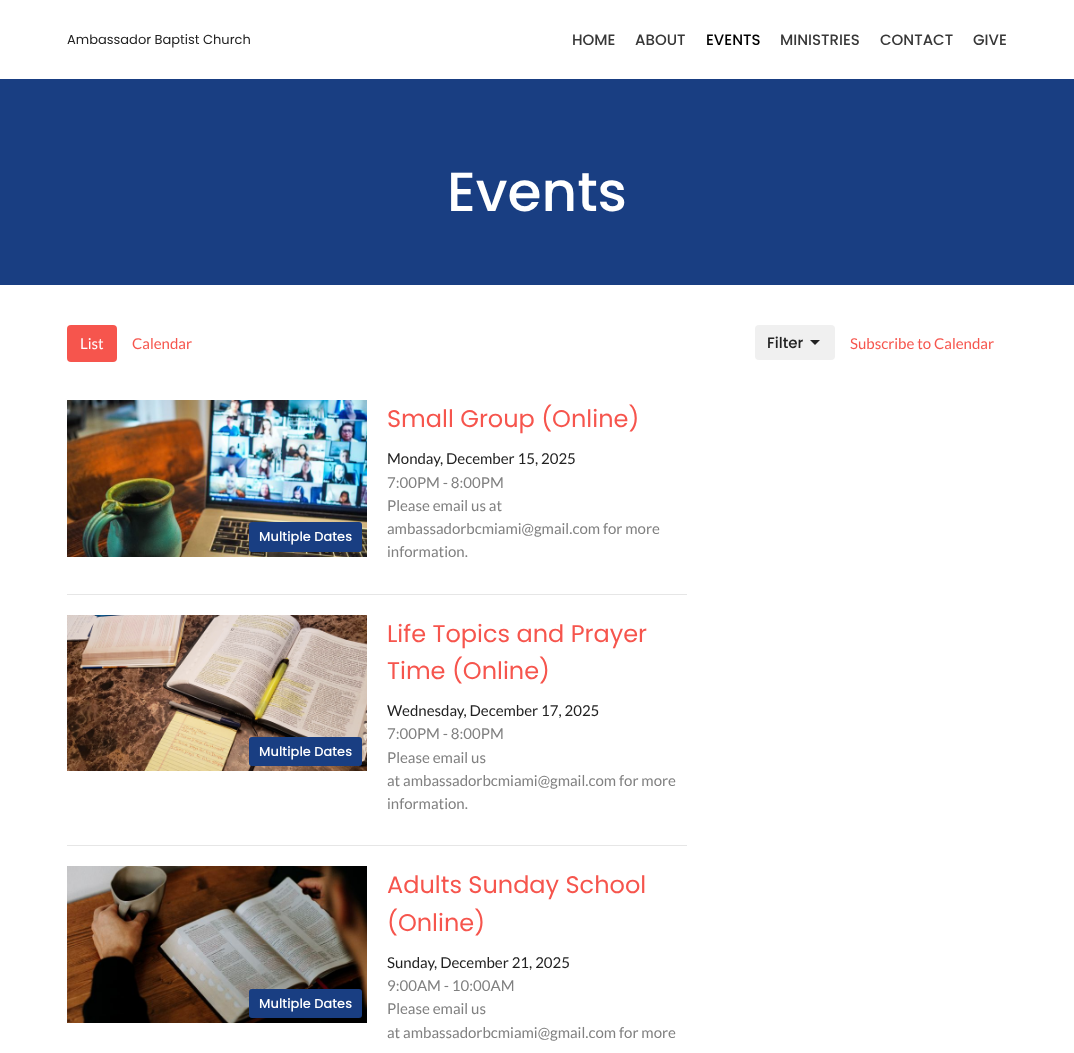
(async () => {
  const canvas = document.querySelector("canvas");
  canvas.width = 1074;
  canvas.height = 1053;
  const ctx = canvas.getContext("2d");
  ctx.miterLimit = 4;
  ctx.fontKerning = "normal";
  async function loadImage(src) {
    const img = new Image();
    img.src = src;
    await img.decode();
    return img;
  }
  let path;

  ctx.fillStyle = "#ffffff";
  ctx.fillRect(0, 0, 1074, 1053);
  ctx.fillStyle = "#193e82";
  ctx.fillRect(0, 79, 1074, 206);
  ctx.fillStyle = "#f6554d";
  ctx.beginPath();
  ctx.roundRect(67, 325, 50, 37, 4);
  ctx.fill();
  ctx.fillStyle = "#f0f0f0";
  ctx.beginPath();
  ctx.roundRect(755, 325, 80, 35, 4);
  ctx.fill();
  ctx.fillStyle = "#222222";
  path = new Path2D("M810 340L815 345L820 340Z");
  ctx.fill(path);
  ctx.fillStyle = "#e6e6e6";
  ctx.fillRect(67, 594, 620, 1);
  ctx.drawImage(await loadImage("img/1.png"), 67, 400, 300, 157);
  ctx.fillStyle = "#193e82";
  ctx.beginPath();
  ctx.roundRect(249, 522, 113, 30, 3);
  ctx.fill();
  ctx.fillStyle = "#e6e6e6";
  ctx.fillRect(67, 845, 620, 1);
  ctx.drawImage(await loadImage("img/2.png"), 67, 615, 300, 156);
  ctx.fillStyle = "#193e82";
  ctx.beginPath();
  ctx.roundRect(249, 737, 113, 29, 3);
  ctx.fill();
  ctx.drawImage(await loadImage("img/3.png"), 67, 866, 300, 157);
  ctx.beginPath();
  ctx.roundRect(249, 989, 113, 29, 3);
  ctx.fill();
  ctx.font = "13px Poppins";
  ctx.fillStyle = "#222222";
  ctx.fillText("Ambassador Baptist Church", 67, 44);
  ctx.font = "500 15px Poppins";
  ctx.fillStyle = "#383838";
  ctx.fillText("HOME", 572, 45);
  ctx.fillText("ABOUT", 635, 45);
  ctx.fillStyle = "#000000";
  ctx.fillText("EVENTS", 706, 45);
  ctx.fillStyle = "#383838";
  for (const [text, x, y] of [
    ["MINISTRIES", 780, 45],
    ["CONTACT", 880, 45],
    ["GIVE", 973, 45],
  ]) {
    ctx.fillText(text, x, y);
  }
  ctx.font = "500 55px Poppins";
  ctx.fillStyle = "#ffffff";
  ctx.fillText("Events", 447, 211);
  ctx.font = "15px Lato";
  ctx.fillText("List", 80, 349);
  ctx.fillStyle = "#f6554d";
  ctx.fillText("Calendar", 132, 349);
  ctx.font = "500 15px Poppins";
  ctx.fillStyle = "#222222";
  ctx.fillText("Filter", 767, 348);
  ctx.font = "15px Lato";
  ctx.fillStyle = "#f6554d";
  ctx.fillText("Subscribe to Calendar", 850, 349);
  ctx.font = "500 13px Poppins";
  ctx.fillStyle = "#ffffff";
  ctx.fillText("Multiple Dates", 259, 541);
  ctx.font = "24px Poppins";
  ctx.fillStyle = "#f6554d";
  ctx.fillText("Small Group (Online)", 387, 427);
  ctx.font = "15px Lato";
  ctx.fillStyle = "#222222";
  ctx.fillText("Monday, December 15, 2025", 387, 464);
  ctx.fillStyle = "#808080";
  for (const [text, x, y] of [
    ["7:00PM - 8:00PM", 387, 488],
    ["Please email us at", 387, 511],
    ["ambassadorbcmiami@gmail.com for more", 387, 534],
    ["information.", 387, 557],
  ]) {
    ctx.fillText(text, x, y);
  }
  ctx.font = "500 13px Poppins";
  ctx.fillStyle = "#ffffff";
  ctx.fillText("Multiple Dates", 259, 756);
  ctx.font = "24px Poppins";
  ctx.fillStyle = "#f6554d";
  ctx.fillText("Life Topics and Prayer", 387, 642);
  ctx.fillText("Time (Online)", 387, 679);
  ctx.font = "15px Lato";
  ctx.fillStyle = "#222222";
  ctx.fillText("Wednesday, December 17, 2025", 387, 716);
  ctx.fillStyle = "#808080";
  for (const [text, x, y] of [
    ["7:00PM - 8:00PM", 387, 739],
    ["Please email us", 387, 763],
    ["at ambassadorbcmiami@gmail.com for more", 387, 786],
    ["information.", 387, 809],
  ]) {
    ctx.fillText(text, x, y);
  }
  ctx.font = "500 13px Poppins";
  ctx.fillStyle = "#ffffff";
  ctx.fillText("Multiple Dates", 259, 1008);
  ctx.font = "24px Poppins";
  ctx.fillStyle = "#f6554d";
  ctx.fillText("Adults Sunday School", 387, 893);
  ctx.fillText("(Online)", 387, 931);
  ctx.font = "15px Lato";
  ctx.fillStyle = "#222222";
  ctx.fillText("Sunday, December 21, 2025", 387, 968);
  ctx.fillStyle = "#808080";
  for (const [text, x, y] of [
    ["9:00AM - 10:00AM", 387, 991],
    ["Please email us", 387, 1014],
    ["at ambassadorbcmiami@gmail.com for more", 387, 1038],
  ]) {
    ctx.fillText(text, x, y);
  }
})();
